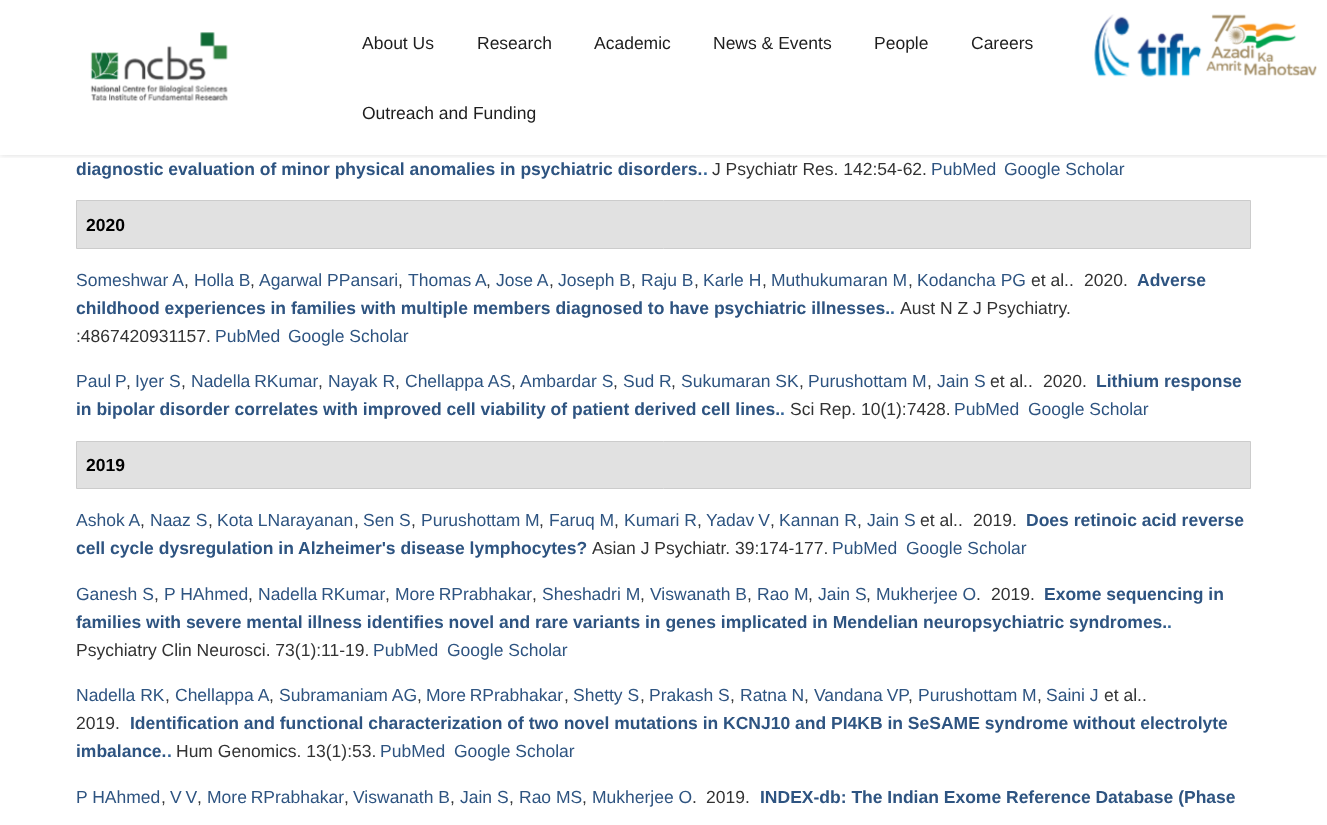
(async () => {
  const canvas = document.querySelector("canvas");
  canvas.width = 1327;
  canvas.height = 825;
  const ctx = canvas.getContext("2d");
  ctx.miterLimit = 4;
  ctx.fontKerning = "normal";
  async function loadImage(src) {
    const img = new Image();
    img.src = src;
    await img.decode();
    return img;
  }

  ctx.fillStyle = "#ffffff";
  ctx.fillRect(0, 0, 1327, 825);
  ctx.save();
  ctx.beginPath();
  ctx.rect(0, 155, 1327, 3);
  ctx.clip();
  ctx.fillStyle = "rgba(0, 0, 0, 0.15)";
  ctx.filter = "blur(3px)";
  ctx.beginPath();
  ctx.rect(0, 0, 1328, 155);
  ctx.fill();
  ctx.filter = "none";
  ctx.restore();
  ctx.drawImage(await loadImage("img/1.png"), 90, 32, 138, 69);
  ctx.drawImage(await loadImage("img/2.png"), 1094, 14, 108, 63);
  ctx.drawImage(await loadImage("img/3.png"), 1206, 14, 111, 62);
  ctx.fillStyle = "#e1e1e1";
  ctx.beginPath();
  ctx.rect(76.5, 200.5, 1174, 48);
  ctx.fill();
  ctx.strokeStyle = "#cccccc";
  ctx.stroke();
  ctx.beginPath();
  ctx.rect(76.5, 441.5, 1174, 47);
  ctx.fill();
  ctx.stroke();
  ctx.font = "17.5px Liberation Sans";
  ctx.fillStyle = "#1e1e1e";
  for (const [text, x, y] of [
    ["About Us", 362, 49],
    ["Research", 477, 49],
    ["Academic", 594, 49],
    ["News & Events", 713, 49],
    ["People", 874, 49],
    ["Careers", 971, 49],
    ["Outreach and Funding", 362, 119],
  ]) {
    ctx.fillText(text, x, y);
  }
  ctx.font = "bold 17.5px Liberation Sans";
  ctx.fillStyle = "#2e5481";
  ctx.fillText("diagnostic evaluation of minor physical anomalies in psychiatric disorders.", 76, 175);
  ctx.fillStyle = "#336599";
  ctx.fillText(".", 703, 175);
  ctx.font = "17.5px Liberation Sans";
  ctx.fillStyle = "#333333";
  ctx.fillText("J Psychiatr Res. 142:54-62.", 712, 175);
  ctx.fillStyle = "#2e5481";
  ctx.fillText("PubMed", 931, 175);
  ctx.fillText("Google Scholar", 1004, 175);
  ctx.font = "bold 17.5px Liberation Sans";
  ctx.fillStyle = "#000000";
  ctx.fillText("2020", 86, 231);
  ctx.font = "17.5px Liberation Sans";
  ctx.fillStyle = "#2e5481";
  ctx.fillText("Someshwar A", 76, 286);
  ctx.fillStyle = "#333333";
  ctx.fillText(",", 184, 286);
  ctx.fillStyle = "#2e5481";
  ctx.fillText("Holla B", 194, 286);
  ctx.fillStyle = "#333333";
  ctx.fillText(",", 250, 286);
  ctx.fillStyle = "#2e5481";
  ctx.fillText("Agarwal PPansari", 259, 286);
  ctx.fillStyle = "#333333";
  ctx.fillText(",", 398, 286);
  ctx.fillStyle = "#2e5481";
  ctx.fillText("Thomas A", 408, 286);
  ctx.fillStyle = "#333333";
  ctx.fillText(",", 486, 286);
  ctx.fillStyle = "#2e5481";
  ctx.fillText("Jose A", 496, 286);
  ctx.fillStyle = "#333333";
  ctx.fillText(",", 549, 286);
  ctx.fillStyle = "#2e5481";
  ctx.fillText("Joseph B", 558, 286);
  ctx.fillStyle = "#333333";
  ctx.fillText(",", 631, 286);
  ctx.fillStyle = "#2e5481";
  ctx.fillText("Raju B", 641, 286);
  ctx.fillStyle = "#333333";
  ctx.fillText(",", 694, 286);
  ctx.fillStyle = "#2e5481";
  ctx.fillText("Karle H", 703, 286);
  ctx.fillStyle = "#333333";
  ctx.fillText(",", 762, 286);
  ctx.fillStyle = "#2e5481";
  ctx.fillText("Muthukumaran M", 771, 286);
  ctx.fillStyle = "#333333";
  ctx.fillText(",", 908, 286);
  ctx.fillStyle = "#2e5481";
  ctx.fillText("Kodancha PG", 917, 286);
  ctx.fillStyle = "#333333";
  ctx.fillText("et al..", 1031, 286);
  ctx.fillText("2020.", 1084, 286);
  ctx.font = "bold 17.5px Liberation Sans";
  ctx.fillStyle = "#2e5481";
  ctx.fillText("Adverse", 1137, 286);
  ctx.fillText("childhood experiences in families with multiple members diagnosed to have psychiatric illnesses.", 76, 314);
  ctx.fillStyle = "#336599";
  ctx.fillText(".", 890, 314);
  ctx.font = "17.5px Liberation Sans";
  ctx.fillStyle = "#333333";
  ctx.fillText("Aust N Z J Psychiatry.", 900, 314);
  ctx.fillText(":4867420931157.", 76, 342);
  ctx.fillStyle = "#2e5481";
  ctx.fillText("PubMed", 215, 342);
  ctx.fillText("Google Scholar", 288, 342);
  ctx.wordSpacing = "-1px";
  ctx.fillText("Paul P", 76, 387);
  ctx.wordSpacing = "0px";
  ctx.fillStyle = "#333333";
  ctx.fillText(",", 126, 387);
  ctx.fillStyle = "#2e5481";
  ctx.fillText("Iyer S", 135, 387);
  ctx.fillStyle = "#333333";
  ctx.fillText(",", 181, 387);
  ctx.wordSpacing = "-1px";
  ctx.fillStyle = "#2e5481";
  ctx.fillText("Nadella RKumar", 191, 387);
  ctx.wordSpacing = "0px";
  ctx.fillStyle = "#333333";
  ctx.fillText(",", 318, 387);
  ctx.fillStyle = "#2e5481";
  ctx.fillText("Nayak R", 328, 387);
  ctx.fillStyle = "#333333";
  ctx.fillText(",", 395, 387);
  ctx.fillStyle = "#2e5481";
  ctx.fillText("Chellappa AS", 405, 387);
  ctx.fillStyle = "#333333";
  ctx.fillText(",", 511, 387);
  ctx.fillStyle = "#2e5481";
  ctx.fillText("Ambardar S", 520, 387);
  ctx.fillStyle = "#333333";
  ctx.fillText(",", 613, 387);
  ctx.fillStyle = "#2e5481";
  ctx.fillText("Sud R", 623, 387);
  ctx.fillStyle = "#333333";
  ctx.fillText(",", 671, 387);
  ctx.fillStyle = "#2e5481";
  ctx.fillText("Sukumaran SK", 681, 387);
  ctx.fillStyle = "#333333";
  ctx.fillText(",", 799, 387);
  ctx.fillStyle = "#2e5481";
  ctx.fillText("Purushottam M", 808, 387);
  ctx.fillStyle = "#333333";
  ctx.fillText(",", 927, 387);
  ctx.fillStyle = "#2e5481";
  ctx.fillText("Jain S", 937, 387);
  ctx.fillStyle = "#333333";
  ctx.fillText("et al..", 990, 387);
  ctx.fillText("2020.", 1043, 387);
  ctx.font = "bold 17.5px Liberation Sans";
  ctx.fillStyle = "#2e5481";
  ctx.fillText("Lithium response", 1096, 387);
  ctx.fillText("in bipolar disorder correlates with improved cell viability of patient derived cell lines.", 76, 415);
  ctx.fillStyle = "#336599";
  ctx.fillText(".", 780, 415);
  ctx.font = "17.5px Liberation Sans";
  ctx.fillStyle = "#333333";
  ctx.fillText("Sci Rep. 10(1):7428.", 790, 415);
  ctx.fillStyle = "#2e5481";
  ctx.fillText("PubMed", 954, 415);
  ctx.fillText("Google Scholar", 1028, 415);
  ctx.font = "bold 17.5px Liberation Sans";
  ctx.fillStyle = "#000000";
  ctx.fillText("2019", 86, 471);
  ctx.font = "17.5px Liberation Sans";
  ctx.fillStyle = "#2e5481";
  ctx.fillText("Ashok A", 76, 526);
  ctx.fillStyle = "#333333";
  ctx.fillText(",", 140, 526);
  ctx.fillStyle = "#2e5481";
  ctx.fillText("Naaz S", 150, 526);
  ctx.fillStyle = "#333333";
  ctx.fillText(",", 208, 526);
  ctx.fillStyle = "#2e5481";
  ctx.fillText("Kota LNarayanan", 217, 526);
  ctx.fillStyle = "#333333";
  ctx.fillText(",", 354, 526);
  ctx.fillStyle = "#2e5481";
  ctx.fillText("Sen S", 363, 526);
  ctx.fillStyle = "#333333";
  ctx.fillText(",", 411, 526);
  ctx.fillStyle = "#2e5481";
  ctx.fillText("Purushottam M", 421, 526);
  ctx.fillStyle = "#333333";
  ctx.fillText(",", 539, 526);
  ctx.fillStyle = "#2e5481";
  ctx.fillText("Faruq M", 549, 526);
  ctx.fillStyle = "#333333";
  ctx.fillText(",", 614, 526);
  ctx.fillStyle = "#2e5481";
  ctx.fillText("Kumari R", 624, 526);
  ctx.fillStyle = "#333333";
  ctx.fillText(",", 697, 526);
  ctx.wordSpacing = "-1px";
  ctx.fillStyle = "#2e5481";
  ctx.fillText("Yadav V", 706, 526);
  ctx.wordSpacing = "0px";
  ctx.fillStyle = "#333333";
  ctx.fillText(",", 770, 526);
  ctx.fillStyle = "#2e5481";
  ctx.fillText("Kannan R", 779, 526);
  ctx.fillStyle = "#333333";
  ctx.fillText(",", 857, 526);
  ctx.fillStyle = "#2e5481";
  ctx.fillText("Jain S", 867, 526);
  ctx.fillStyle = "#333333";
  ctx.fillText("et al..", 920, 526);
  ctx.fillText("2019.", 973, 526);
  ctx.font = "bold 17.5px Liberation Sans";
  ctx.fillStyle = "#2e5481";
  ctx.fillText("Does retinoic acid reverse", 1026, 526);
  ctx.fillText("cell cycle dysregulation in Alzheimer's disease lymphocytes?", 76, 554);
  ctx.font = "17.5px Liberation Sans";
  ctx.fillStyle = "#333333";
  ctx.fillText("Asian J Psychiatr. 39:174-177.", 592, 554);
  ctx.fillStyle = "#2e5481";
  for (const [text, x, y] of [
    ["PubMed", 832, 554],
    ["Google Scholar", 906, 554],
    ["Ganesh S", 76, 600],
  ]) {
    ctx.fillText(text, x, y);
  }
  ctx.fillStyle = "#333333";
  ctx.fillText(",", 154, 600);
  ctx.fillStyle = "#2e5481";
  ctx.fillText("P HAhmed", 164, 600);
  ctx.fillStyle = "#333333";
  ctx.fillText(",", 248, 600);
  ctx.wordSpacing = "-1px";
  ctx.fillStyle = "#2e5481";
  ctx.fillText("Nadella RKumar", 258, 600);
  ctx.wordSpacing = "0px";
  ctx.fillStyle = "#333333";
  ctx.fillText(",", 385, 600);
  ctx.wordSpacing = "-1px";
  ctx.fillStyle = "#2e5481";
  ctx.fillText("More RPrabhakar", 395, 600);
  ctx.wordSpacing = "0px";
  ctx.fillStyle = "#333333";
  ctx.fillText(",", 532, 600);
  ctx.fillStyle = "#2e5481";
  ctx.fillText("Sheshadri M", 542, 600);
  ctx.fillStyle = "#333333";
  ctx.fillText(",", 640, 600);
  ctx.fillStyle = "#2e5481";
  ctx.fillText("Viswanath B", 650, 600);
  ctx.fillStyle = "#333333";
  ctx.fillText(",", 747, 600);
  ctx.fillStyle = "#2e5481";
  ctx.fillText("Rao M", 757, 600);
  ctx.fillStyle = "#333333";
  ctx.fillText(",", 808, 600);
  ctx.fillStyle = "#2e5481";
  ctx.fillText("Jain S", 818, 600);
  ctx.fillStyle = "#333333";
  ctx.fillText(",", 866, 600);
  ctx.fillStyle = "#2e5481";
  ctx.fillText("Mukherjee O", 876, 600);
  ctx.fillStyle = "#333333";
  ctx.fillText(".", 976, 600);
  ctx.fillText("2019.", 991, 600);
  ctx.font = "bold 17.5px Liberation Sans";
  ctx.fillStyle = "#2e5481";
  ctx.fillText("Exome sequencing in", 1044, 600);
  ctx.fillText("families with severe mental illness identifies novel and rare variants in genes implicated in Mendelian neuropsychiatric syndromes.", 76, 628);
  ctx.fillStyle = "#336599";
  ctx.fillText(".", 1167, 628);
  ctx.font = "17.5px Liberation Sans";
  ctx.fillStyle = "#333333";
  ctx.fillText("Psychiatry Clin Neurosci. 73(1):11-19.", 76, 656);
  ctx.fillStyle = "#2e5481";
  for (const [text, x, y] of [
    ["PubMed", 373, 656],
    ["Google Scholar", 447, 656],
    ["Nadella RK", 76, 701],
  ]) {
    ctx.fillText(text, x, y);
  }
  ctx.fillStyle = "#333333";
  ctx.fillText(",", 165, 701);
  ctx.fillStyle = "#2e5481";
  ctx.fillText("Chellappa A", 175, 701);
  ctx.fillStyle = "#333333";
  ctx.fillText(",", 269, 701);
  ctx.fillStyle = "#2e5481";
  ctx.fillText("Subramaniam AG", 279, 701);
  ctx.fillStyle = "#333333";
  ctx.fillText(",", 417, 701);
  ctx.wordSpacing = "-1px";
  ctx.fillStyle = "#2e5481";
  ctx.fillText("More RPrabhakar", 426, 701);
  ctx.wordSpacing = "0px";
  ctx.fillStyle = "#333333";
  ctx.fillText(",", 564, 701);
  ctx.fillStyle = "#2e5481";
  ctx.fillText("Shetty S", 573, 701);
  ctx.fillStyle = "#333333";
  ctx.fillText(",", 640, 701);
  ctx.fillStyle = "#2e5481";
  ctx.fillText("Prakash S", 649, 701);
  ctx.fillStyle = "#333333";
  ctx.fillText(",", 730, 701);
  ctx.fillStyle = "#2e5481";
  ctx.fillText("Ratna N", 740, 701);
  ctx.fillStyle = "#333333";
  ctx.fillText(",", 804, 701);
  ctx.wordSpacing = "-1px";
  ctx.fillStyle = "#2e5481";
  ctx.fillText("Vandana VP", 814, 701);
  ctx.wordSpacing = "0px";
  ctx.fillStyle = "#333333";
  ctx.fillText(",", 908, 701);
  ctx.fillStyle = "#2e5481";
  ctx.fillText("Purushottam M", 918, 701);
  ctx.fillStyle = "#333333";
  ctx.fillText(",", 1037, 701);
  ctx.fillStyle = "#2e5481";
  ctx.fillText("Saini J", 1046, 701);
  ctx.fillStyle = "#333333";
  ctx.fillText("et al..", 1104, 701);
  ctx.fillText("2019.", 76, 729);
  ctx.font = "bold 17.5px Liberation Sans";
  ctx.fillStyle = "#2e5481";
  ctx.fillText("Identification and functional characterization of two novel mutations in KCNJ10 and PI4KB in SeSAME syndrome without electrolyte", 130, 729);
  ctx.fillText("imbalance.", 76, 757);
  ctx.fillStyle = "#336599";
  ctx.fillText(".", 167, 757);
  ctx.font = "17.5px Liberation Sans";
  ctx.fillStyle = "#333333";
  ctx.fillText("Hum Genomics. 13(1):53.", 176, 757);
  ctx.fillStyle = "#2e5481";
  for (const [text, x, y] of [
    ["PubMed", 380, 757],
    ["Google Scholar", 454, 757],
    ["P HAhmed", 76, 803],
  ]) {
    ctx.fillText(text, x, y);
  }
  ctx.fillStyle = "#333333";
  ctx.fillText(",", 161, 803);
  ctx.wordSpacing = "-1px";
  ctx.fillStyle = "#2e5481";
  ctx.fillText("V V", 170, 803);
  ctx.wordSpacing = "0px";
  ctx.fillStyle = "#333333";
  ctx.fillText(",", 197, 803);
  ctx.wordSpacing = "-1px";
  ctx.fillStyle = "#2e5481";
  ctx.fillText("More RPrabhakar", 207, 803);
  ctx.wordSpacing = "0px";
  ctx.fillStyle = "#333333";
  ctx.fillText(",", 344, 803);
  ctx.fillStyle = "#2e5481";
  ctx.fillText("Viswanath B", 353, 803);
  ctx.fillStyle = "#333333";
  ctx.fillText(",", 450, 803);
  ctx.fillStyle = "#2e5481";
  ctx.fillText("Jain S", 460, 803);
  ctx.fillStyle = "#333333";
  ctx.fillText(",", 509, 803);
  ctx.fillStyle = "#2e5481";
  ctx.fillText("Rao MS", 519, 803);
  ctx.fillStyle = "#333333";
  ctx.fillText(",", 582, 803);
  ctx.fillStyle = "#2e5481";
  ctx.fillText("Mukherjee O", 592, 803);
  ctx.fillStyle = "#333333";
  ctx.fillText(".", 692, 803);
  ctx.fillText("2019.", 706, 803);
  ctx.font = "bold 17.5px Liberation Sans";
  ctx.fillStyle = "#2e5481";
  ctx.fillText("INDEX-db: The Indian Exome Reference Database (Phase", 760, 803);
})();
